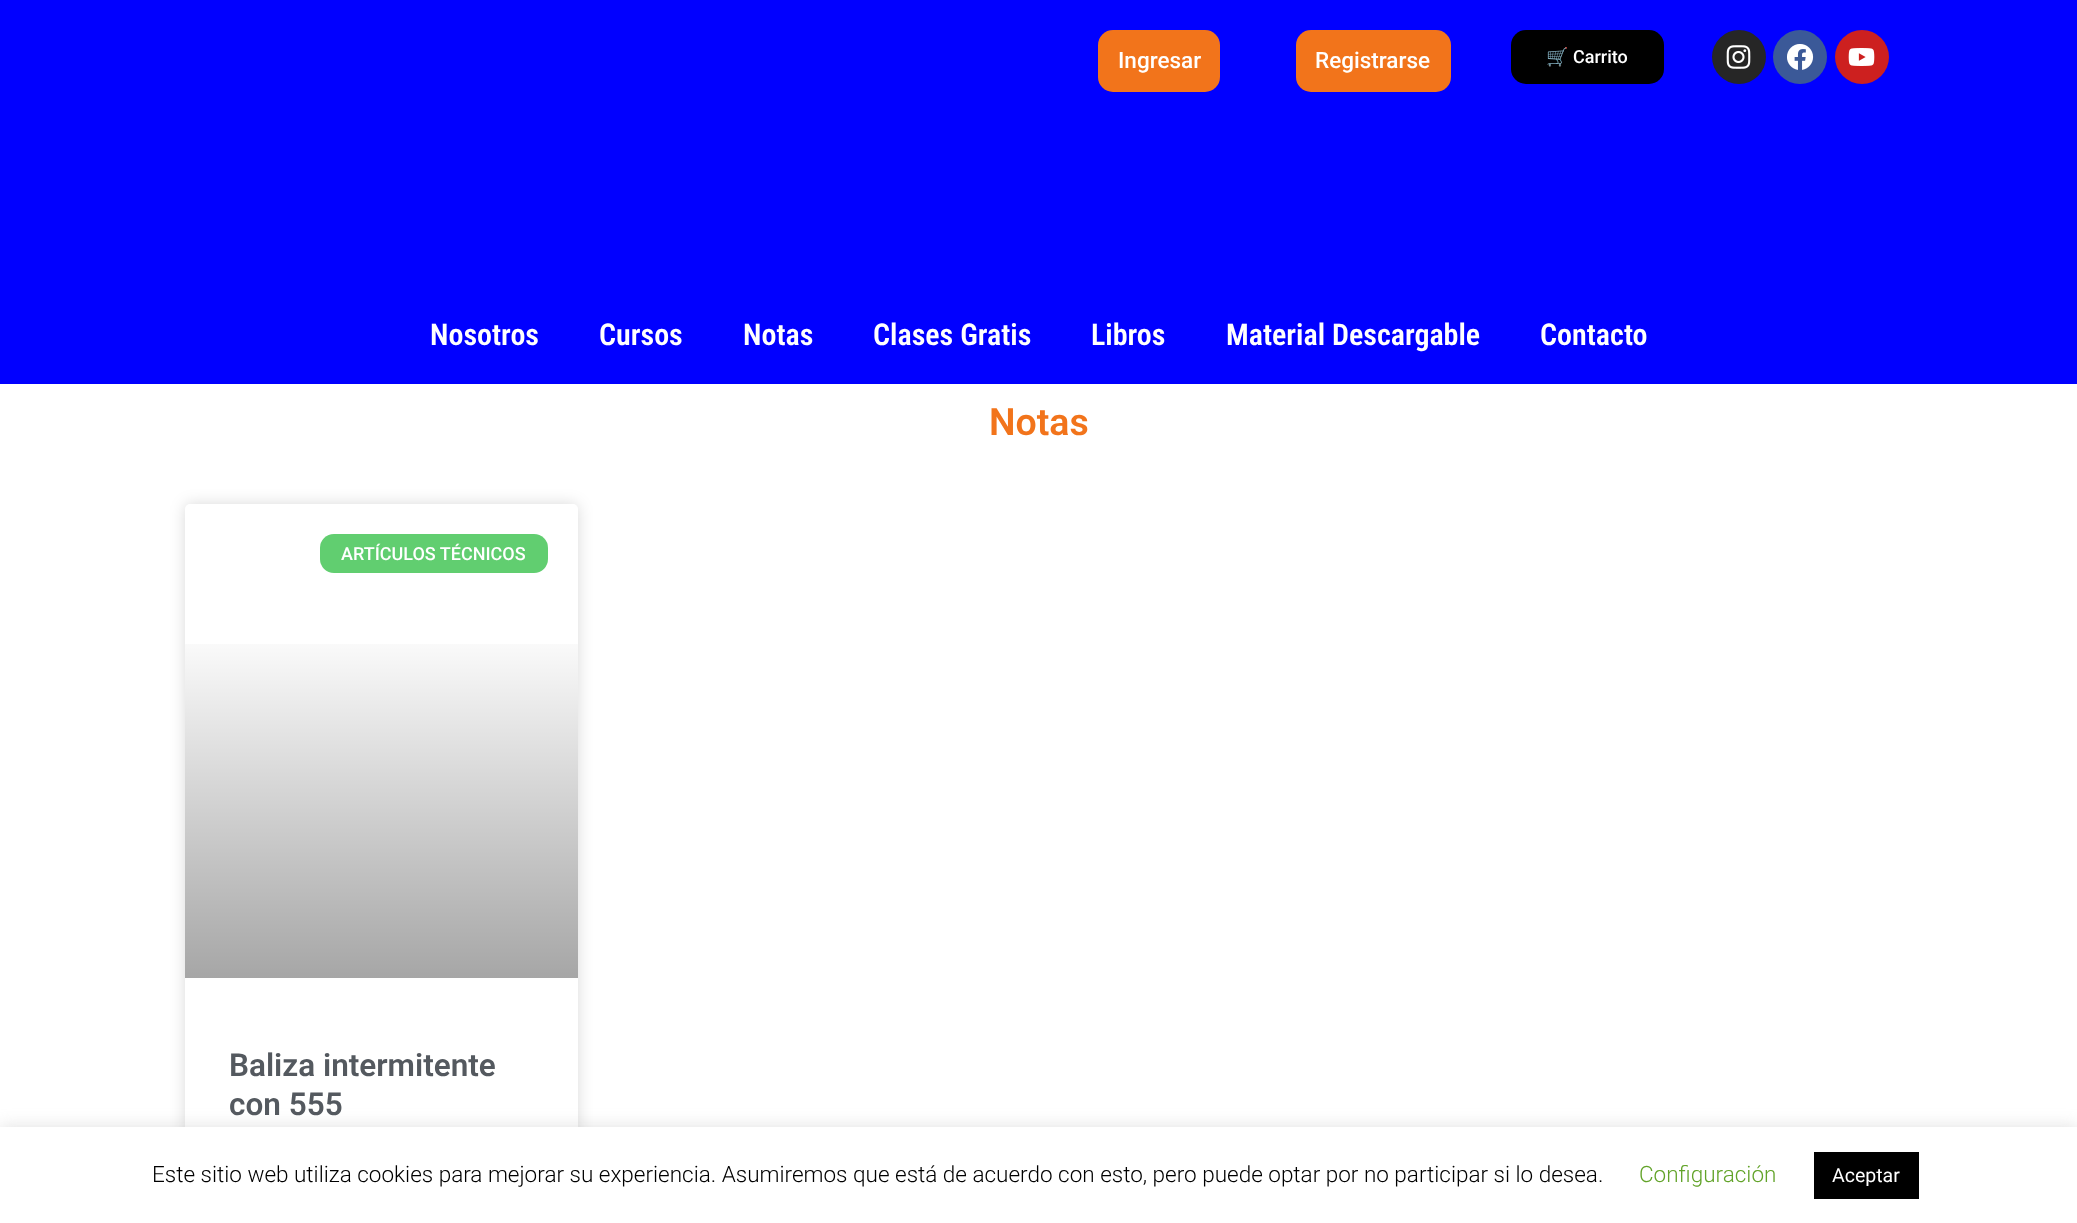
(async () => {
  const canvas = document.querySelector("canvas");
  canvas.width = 2077;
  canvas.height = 1223;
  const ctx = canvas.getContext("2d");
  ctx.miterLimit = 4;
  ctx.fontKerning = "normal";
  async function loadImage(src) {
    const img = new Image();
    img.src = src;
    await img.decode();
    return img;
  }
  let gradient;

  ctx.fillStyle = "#ffffff";
  ctx.fillRect(0, 0, 2077, 1223);
  ctx.fillStyle = "#0100ff";
  ctx.fillRect(0, 0, 2077, 384);
  ctx.fillStyle = "#f2741b";
  ctx.beginPath();
  ctx.roundRect(1098, 30, 122, 62, 15);
  ctx.fill();
  ctx.beginPath();
  ctx.roundRect(1296, 30, 155, 62, 15);
  ctx.fill();
  ctx.fillStyle = "#000000";
  ctx.beginPath();
  ctx.roundRect(1511, 30, 153, 54, 15);
  ctx.fill();
  ctx.fillStyle = "#262626";
  ctx.beginPath();
  ctx.arc(1739, 57, 27, 0, Math.PI * 2);
  ctx.fill();
  ctx.drawImage(await loadImage("img/1.png"), 1726, 45, 25, 24);
  ctx.fillStyle = "#3b5998";
  ctx.beginPath();
  ctx.arc(1800, 57, 27, 0, Math.PI * 2);
  ctx.fill();
  ctx.drawImage(await loadImage("img/2.png"), 1787, 44, 27, 26);
  ctx.fillStyle = "#cd201f";
  ctx.beginPath();
  ctx.arc(1862, 57, 27, 0, Math.PI * 2);
  ctx.fill();
  ctx.drawImage(await loadImage("img/3.png"), 1848, 48, 27, 18);
  ctx.fillStyle = "rgba(0, 0, 0, 0.15)";
  ctx.filter = "blur(7.5px)";
  ctx.beginPath();
  ctx.roundRect(185, 504, 393, 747, 5);
  ctx.fill();
  ctx.filter = "none";
  ctx.fillStyle = "#ffffff";
  ctx.beginPath();
  ctx.roundRect(185, 504, 393, 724, 5);
  ctx.fill();
  ctx.fillStyle = "#61ce70";
  ctx.beginPath();
  ctx.roundRect(320, 534, 228, 39, 14);
  ctx.fill();
  gradient = ctx.createLinearGradient(381, 978, 381, 504);
  gradient.addColorStop(0, "rgba(0, 0, 0, 0.35)");
  gradient.addColorStop(0.75, "rgba(0, 0, 0, 0)");
  ctx.fillStyle = gradient;
  ctx.fillRect(185, 644, 393, 334);
  ctx.fillStyle = "rgba(172, 171, 171, 0.3)";
  ctx.filter = "blur(7.5px)";
  ctx.beginPath();
  ctx.rect(0, 1125, 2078, 98);
  ctx.fill();
  ctx.filter = "none";
  ctx.fillStyle = "#ffffff";
  ctx.fillRect(0, 1127, 2077, 96);
  ctx.fillStyle = "#000000";
  ctx.fillRect(1814, 1152, 105, 47);
  ctx.font = "500 22.5px Roboto";
  ctx.fillStyle = "#ffffff";
  ctx.fillText("Ingresar", 1118, 68);
  ctx.fillText("Registrarse", 1315, 68);
  ctx.font = "18px Noto Color Emoji";
  ctx.fillText("🛒", 1546, 63);
  ctx.font = "500 18px Roboto";
  ctx.fillText("Carrito", 1573, 63);
  ctx.font = "600 30px Roboto Condensed";
  for (const [text, x, y] of [
    ["Nosotros", 430, 345],
    ["Cursos", 599, 345],
    ["Notas", 743, 345],
    ["Clases Gratis", 873, 345],
    ["Libros", 1091, 345],
    ["Material Descargable", 1226, 345],
    ["Contacto", 1540, 345],
  ]) {
    ctx.fillText(text, x, y);
  }
  ctx.font = "600 37.5px Roboto";
  ctx.fillStyle = "#f2741b";
  ctx.fillText("Notas", 989, 435);
  ctx.font = "500 18px Roboto";
  ctx.fillStyle = "#ffffff";
  ctx.fillText("ARTÍCULOS TÉCNICOS", 341, 560);
  ctx.font = "600 31.5px Roboto";
  ctx.fillStyle = "#54595f";
  ctx.fillText("Baliza intermitente", 229, 1076);
  ctx.fillText("con 555", 229, 1115);
  ctx.font = "300 22.5px Roboto";
  ctx.fillStyle = "#000000";
  ctx.fillText("Este sitio web utiliza cookies para mejorar su experiencia. Asumiremos que está de acuerdo con esto, pero puede optar por no participar si lo desea.", 152, 1182);
  ctx.fillStyle = "#62a329";
  ctx.fillText("Configuración", 1639, 1182);
  ctx.font = "19.5px Roboto";
  ctx.fillStyle = "#ffffff";
  ctx.fillText("Aceptar", 1832, 1182);
})();
